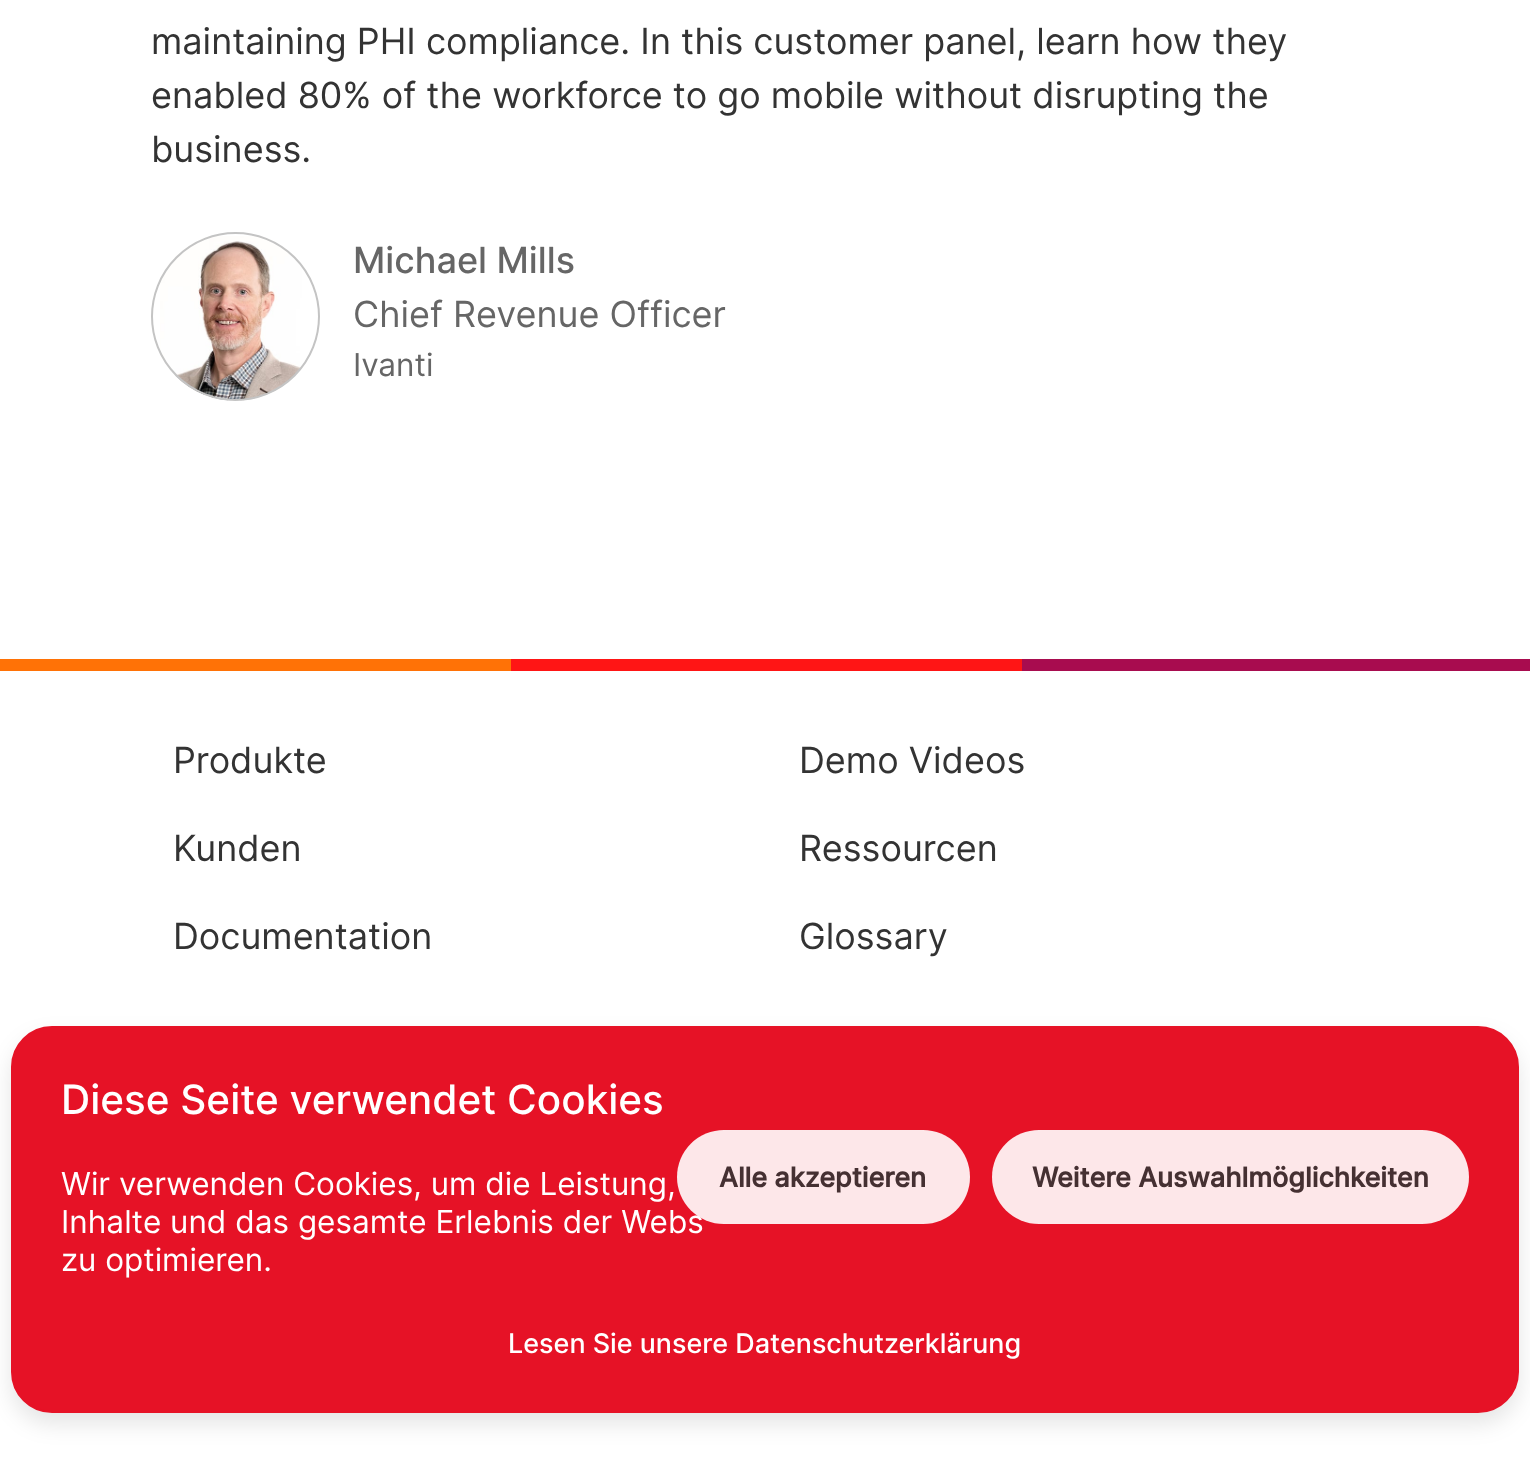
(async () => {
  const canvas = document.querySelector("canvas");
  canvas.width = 1530;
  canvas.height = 1461;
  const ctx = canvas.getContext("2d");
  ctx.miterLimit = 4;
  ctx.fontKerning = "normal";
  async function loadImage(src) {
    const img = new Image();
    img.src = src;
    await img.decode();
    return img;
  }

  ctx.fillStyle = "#ffffff";
  ctx.fillRect(0, 0, 1530, 1461);
  ctx.drawImage(await loadImage("img/1.png"), 160, 236, 142, 165);
  ctx.beginPath();
  ctx.arc(235.5, 316.5, 83.5, 0, Math.PI * 2);
  ctx.strokeStyle = "#c4c4c4";
  ctx.lineWidth = 2;
  ctx.stroke();
  for (const [x, y, w, h, color] of [
    [1022, 659, 508, 12, "#a80c4f"],
    [511, 659, 511, 12, "#ff1515"],
    [0, 659, 511, 12, "#ff7206"],
  ]) {
    ctx.fillStyle = color;
    ctx.fillRect(x, y, w, h);
  }
  ctx.fillStyle = "rgba(0, 0, 0, 0.1)";
  ctx.filter = "blur(11px)";
  ctx.beginPath();
  ctx.roundRect(11, 1037, 1508, 387, 41);
  ctx.fill();
  ctx.filter = "none";
  ctx.fillStyle = "#e61226";
  ctx.beginPath();
  ctx.roundRect(12, 1027, 1506, 385, 40);
  ctx.fill();
  ctx.strokeStyle = "#e61226";
  ctx.stroke();
  ctx.fillStyle = "#fde7e9";
  ctx.beginPath();
  ctx.roundRect(992, 1130, 477, 94, 47);
  ctx.fill();
  ctx.font = "36px Inter";
  ctx.fillStyle = "#333333";
  for (const [text, x, y] of [
    ["maintaining PHI compliance. In this customer panel, learn how they", 151, 54],
    ["enabled 80% of the workforce to go mobile without disrupting the", 151, 108],
    ["business.", 151, 162],
  ]) {
    ctx.fillText(text, x, y);
  }
  ctx.font = "500 36px Inter";
  ctx.fillStyle = "#666666";
  ctx.fillText("Michael Mills", 353, 273);
  ctx.font = "36px Inter";
  ctx.fillText("Chief Revenue Officer", 353, 327);
  ctx.font = "31.5px Inter";
  ctx.fillText("Ivanti", 353, 376);
  ctx.font = "36px Inter";
  ctx.fillStyle = "#333333";
  for (const [text, x, y] of [
    ["Produkte", 173, 773],
    ["Demo Videos", 799, 773],
    ["Kunden", 173, 861],
    ["Ressourcen", 799, 861],
    ["Documentation", 173, 949],
    ["Glossary", 799, 949],
  ]) {
    ctx.fillText(text, x, y);
  }
  ctx.font = "500 40.5px Inter";
  ctx.fillStyle = "#ffffff";
  ctx.fillText("Diese Seite verwendet Cookies", 61, 1114);
  ctx.font = "31.5px Inter";
  for (const [text, x, y] of [
    ["Wir verwenden Cookies, um die Leistung,", 61, 1195],
    ["Inhalte und das gesamte Erlebnis der Webs", 61, 1233],
    ["zu optimieren.", 61, 1271],
  ]) {
    ctx.fillText(text, x, y);
  }
  ctx.fillStyle = "rgba(255, 255, 255, 0.9)";
  ctx.beginPath();
  ctx.roundRect(677, 1130, 293, 94, 47);
  ctx.fill();
  ctx.font = "bold 27px Inter";
  ctx.fillStyle = "#453032";
  ctx.fillText("Alle akzeptieren", 719, 1187);
  ctx.fillText("Weitere Auswahlmöglichkeiten", 1032, 1187);
  ctx.font = "500 27px Inter";
  ctx.fillStyle = "#ffffff";
  ctx.fillText("Lesen Sie unsere Datenschutzerklärung", 508, 1353);
})();
